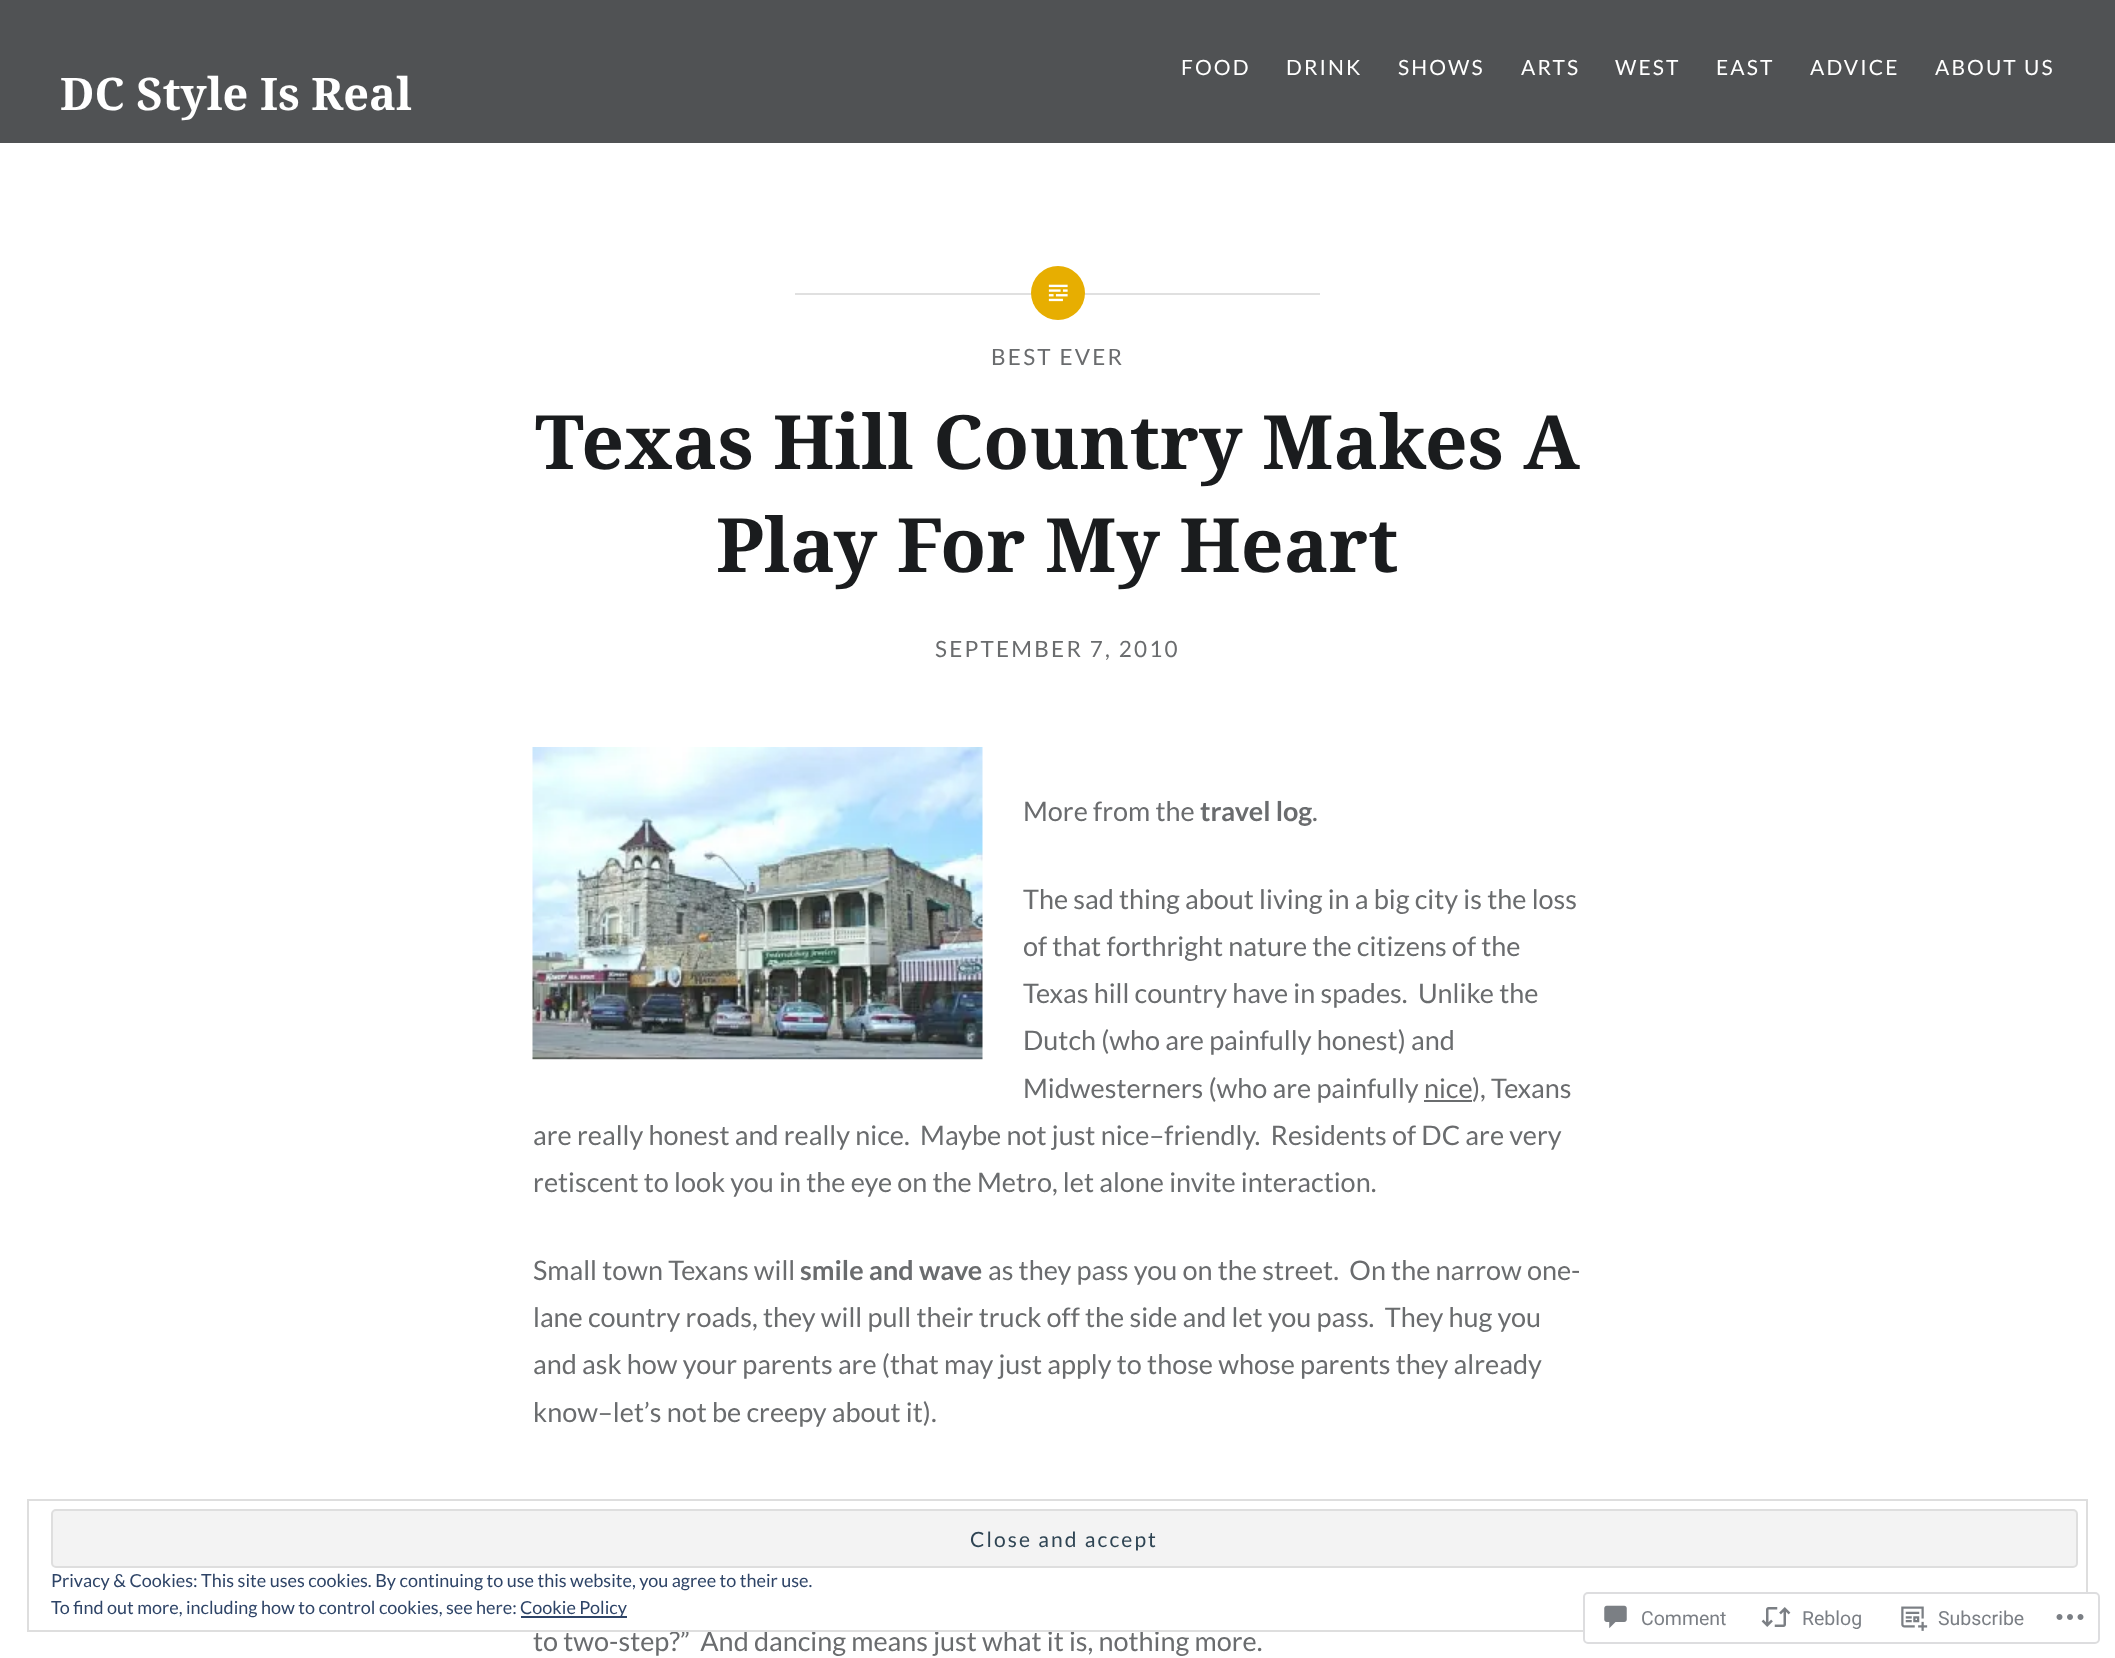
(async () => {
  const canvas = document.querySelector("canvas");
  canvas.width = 2115;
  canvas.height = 1658;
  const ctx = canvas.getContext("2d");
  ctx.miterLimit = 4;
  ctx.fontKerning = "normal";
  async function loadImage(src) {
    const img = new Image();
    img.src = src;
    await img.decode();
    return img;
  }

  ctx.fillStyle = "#ffffff";
  ctx.fillRect(0, 0, 2115, 1658);
  ctx.fillStyle = "#505254";
  ctx.fillRect(0, 0, 2115, 143);
  ctx.fillStyle = "#e0e0e0";
  ctx.fillRect(795, 293, 525, 2);
  ctx.fillStyle = "#e7ae01";
  ctx.beginPath();
  ctx.arc(1058, 293, 27, 0, Math.PI * 2);
  ctx.fill();
  ctx.drawImage(await loadImage("img/1.png"), 1048, 284, 20, 18);
  ctx.drawImage(await loadImage("img/2.png"), 532, 747, 451, 313);
  ctx.fillStyle = "#6a6c6e";
  ctx.fillRect(1424, 1100, 48, 2);
  ctx.letterSpacing = "2.1px";
  ctx.font = "21px Lato";
  ctx.fillStyle = "#ffffff";
  for (const [text, x, y] of [
    ["FOOD", 1181, 75],
    ["DRINK", 1286, 75],
    ["SHOWS", 1398, 75],
    ["ARTS", 1521, 75],
    ["WEST", 1615, 75],
    ["EAST", 1716, 75],
    ["ADVICE", 1810, 75],
    ["ABOUT US", 1935, 75],
  ]) {
    ctx.fillText(text, x, y);
  }
  ctx.letterSpacing = "0px";
  ctx.font = "bold 45px Noto Serif";
  ctx.fillText("DC Style Is Real", 60, 110);
  ctx.letterSpacing = "2.25px";
  ctx.font = "22.5px Lato";
  ctx.fillStyle = "#6a6c6e";
  ctx.fillText("BEST EVER", 991, 365);
  ctx.letterSpacing = "0px";
  ctx.font = "bold 75px Noto Serif";
  ctx.fillStyle = "#1a1c1e";
  ctx.fillText("Texas Hill Country Makes A", 535, 469);
  ctx.fillText("Play For My Heart", 716, 572);
  ctx.letterSpacing = "2.25px";
  ctx.font = "22.5px Lato";
  ctx.fillStyle = "#6a6c6e";
  ctx.fillText("SEPTEMBER 7, 2010", 935, 657);
  ctx.letterSpacing = "0px";
  ctx.font = "27px Lato";
  ctx.fillText("More from the", 1023, 821);
  ctx.font = "bold 27px Lato";
  ctx.fillText("travel log", 1200, 821);
  ctx.font = "27px Lato";
  for (const [text, x, y] of [
    [".", 1312, 821],
    ["The sad thing about living in a big city is the loss", 1023, 909],
    ["of that forthright nature the citizens of the", 1023, 956],
    ["Texas hill country have in spades.  Unlike the", 1023, 1003],
    ["Dutch (who are painfully honest) and", 1023, 1050],
    ["Midwesterners (who are painfully nice", 1023, 1098],
    ["), Texans", 1472, 1098],
    ["are really honest and really nice.  Maybe not just nice–friendly.  Residents of DC are very", 533, 1145],
    ["retiscent to look you in the eye on the Metro, let alone invite interaction.", 533, 1192],
    ["Small town Texans will", 533, 1280],
  ]) {
    ctx.fillText(text, x, y);
  }
  ctx.font = "bold 27px Lato";
  ctx.fillText("smile and wave", 800, 1280);
  ctx.font = "27px Lato";
  for (const [text, x, y] of [
    ["as they pass you on the street.  On the narrow one-", 988, 1280],
    ["lane country roads, they will pull their truck off the side and let you pass.  They hug you", 533, 1327],
    ["and ask how your parents are (that may just apply to those whose parents they already", 533, 1374],
    ["know–let’s not be creepy about it).", 533, 1422],
    ["to two-step?”  And dancing means just what it is, nothing more.", 533, 1651],
  ]) {
    ctx.fillText(text, x, y);
  }
  ctx.strokeStyle = "#dedede";
  ctx.lineWidth = 2;
  ctx.strokeRect(28, 1500, 2059, 131);
  ctx.fillStyle = "#f3f3f3";
  ctx.beginPath();
  ctx.roundRect(52, 1510, 2025, 57, 4);
  ctx.fill();
  ctx.stroke();
  ctx.letterSpacing = "2.1px";
  ctx.font = "21px Lato";
  ctx.fillStyle = "#2e4453";
  ctx.fillText("Close and accept", 970, 1547);
  ctx.letterSpacing = "0px";
  ctx.font = "18px Lato";
  ctx.fillStyle = "#2e4467";
  ctx.fillText("Privacy & Cookies: This site uses cookies. By continuing to use this website, you agree to their use.", 51, 1587);
  ctx.fillText("To find out more, including how to control cookies, see here:", 51, 1614);
  ctx.fillRect(521, 1616, 106, 2);
  ctx.fillText("Cookie Policy", 520, 1614);
  ctx.fillStyle = "rgba(255, 255, 255, 0.98)";
  ctx.beginPath();
  ctx.roundRect(1584, 1593, 515, 50, 4);
  ctx.fill();
  ctx.strokeStyle = "#dddddf";
  ctx.stroke();
  ctx.drawImage(await loadImage("img/3.png"), 1604, 1605, 23, 24);
  ctx.font = "19.5px Roboto";
  ctx.fillStyle = "#7b7f85";
  ctx.fillText("Comment", 1641, 1625);
  ctx.drawImage(await loadImage("img/4.png"), 1761, 1607, 30, 20);
  ctx.fillText("Reblog", 1802, 1625);
  ctx.drawImage(await loadImage("img/5.png"), 1901, 1606, 27, 25);
  ctx.fillText("Subscribe", 1938, 1625);
  ctx.drawImage(await loadImage("img/6.png"), 2056, 1614, 28, 6);
})();
